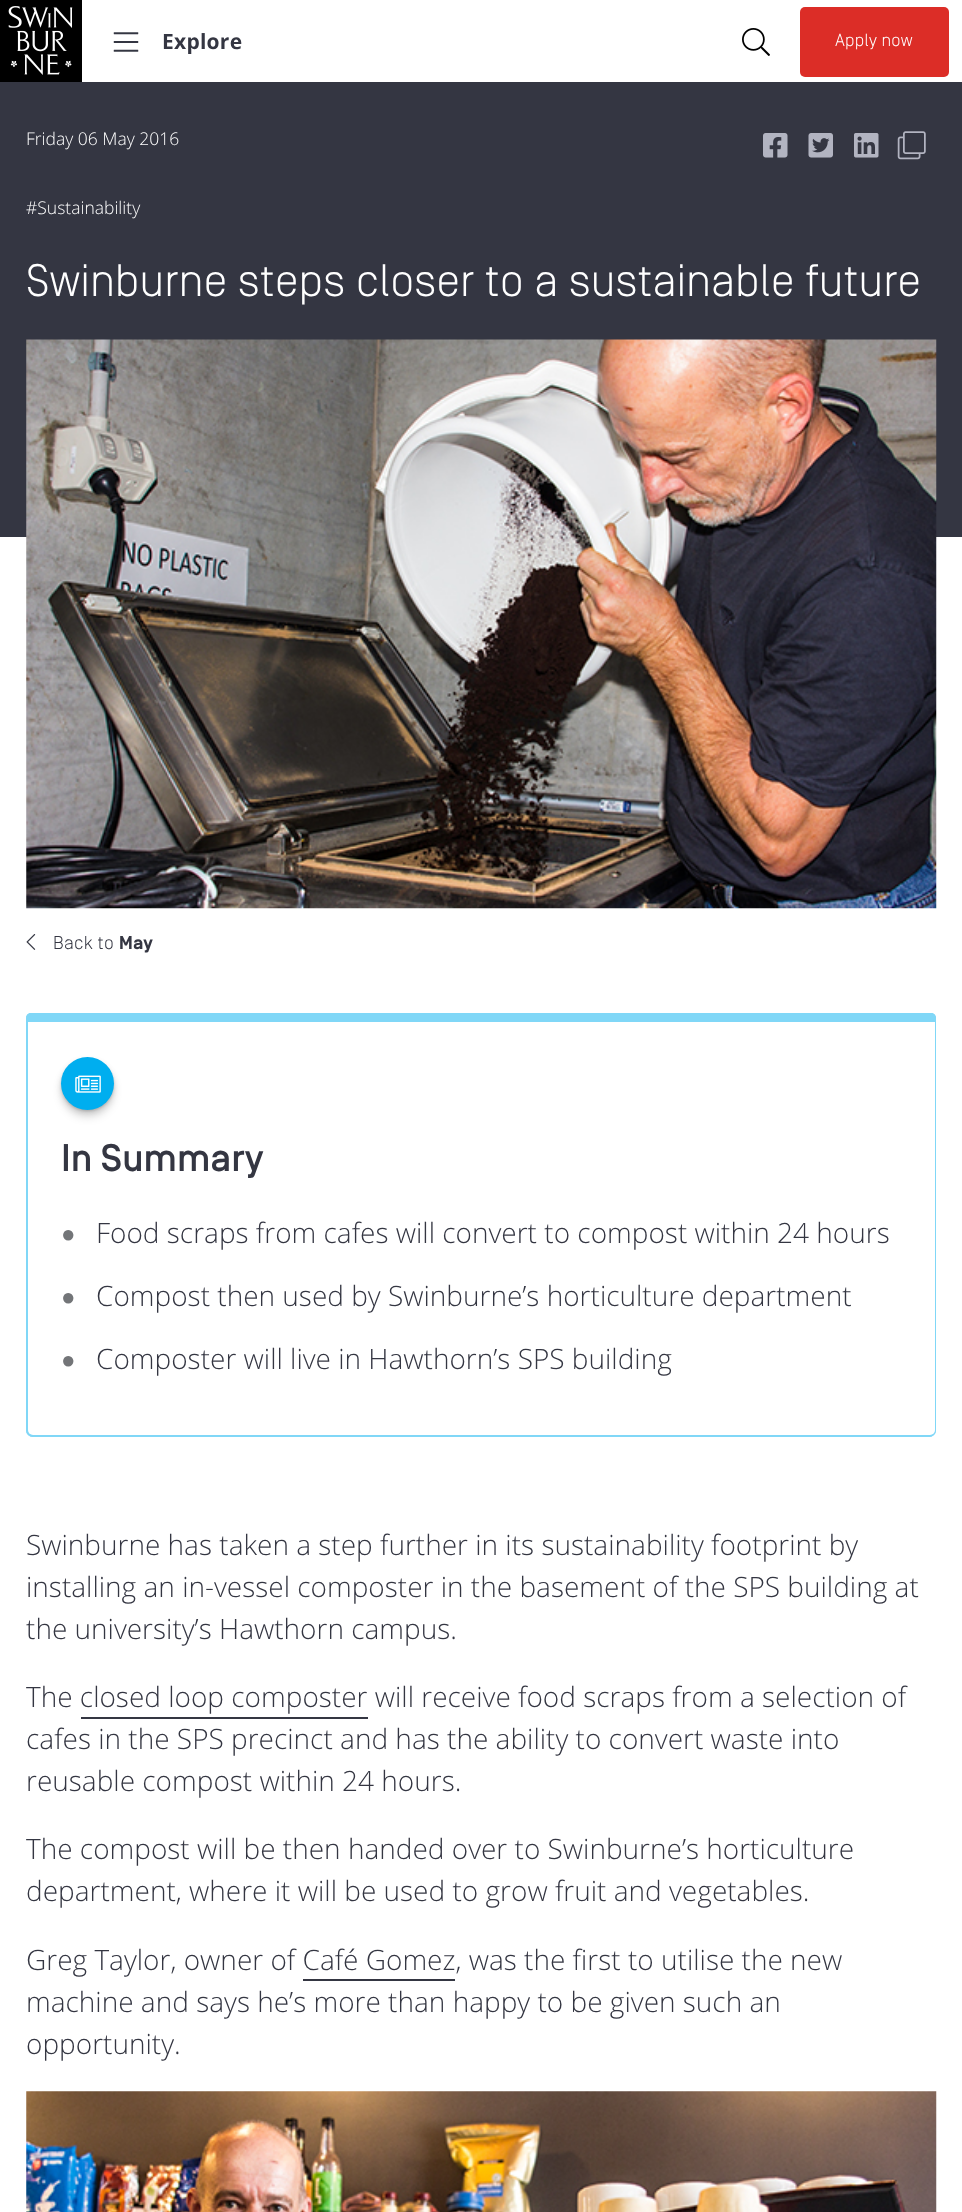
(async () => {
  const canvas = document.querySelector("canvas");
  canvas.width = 962;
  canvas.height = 2212;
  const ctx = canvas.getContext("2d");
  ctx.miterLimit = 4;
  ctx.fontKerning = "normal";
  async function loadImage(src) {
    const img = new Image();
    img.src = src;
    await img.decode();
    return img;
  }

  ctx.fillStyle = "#ffffff";
  ctx.fillRect(0, 0, 962, 2212);
  ctx.drawImage(await loadImage("img/1.png"), 0, 0, 82, 82);
  ctx.drawImage(await loadImage("img/2.png"), 113, 32, 26, 20);
  ctx.drawImage(await loadImage("img/3.png"), 742, 28, 28, 28);
  ctx.fillStyle = "#dc2d27";
  ctx.beginPath();
  ctx.roundRect(800, 7, 149, 70, 5);
  ctx.fill();
  ctx.fillStyle = "#343642";
  ctx.fillRect(0, 82, 962, 455);
  ctx.drawImage(await loadImage("img/4.png"), 763, 133, 25, 25);
  ctx.drawImage(await loadImage("img/5.png"), 808, 133, 25, 25);
  ctx.drawImage(await loadImage("img/6.png"), 854, 133, 25, 25);
  ctx.drawImage(await loadImage("img/7.png"), 897, 131, 29, 29);
  ctx.drawImage(await loadImage("img/8.png"), 26, 339, 911, 570);
  ctx.drawImage(await loadImage("img/9.png"), 26, 934, 10, 16);
  ctx.fillStyle = "#00aeef";
  ctx.beginPath();
  ctx.roundRect(26, 1013, 910, 424, [5, 5, 7, 7]);
  ctx.fill();
  ctx.beginPath();
  ctx.roundRect(30.5, 1017.5, 901, 415, [0.5, 0.5, 2.5, 2.5]);
  ctx.strokeStyle = "rgba(255, 255, 255, 0.5)";
  ctx.lineWidth = 9;
  ctx.stroke();
  ctx.fillStyle = "#ffffff";
  ctx.beginPath();
  ctx.roundRect(28, 1022, 907, 413, [0, 0, 5, 5]);
  ctx.fill();
  ctx.fillStyle = "rgba(0, 0, 0, 0.2)";
  ctx.filter = "blur(3.5px)";
  ctx.beginPath();
  ctx.roundRect(63, 1062, 49, 49, 24.5);
  ctx.fill();
  ctx.filter = "none";
  ctx.fillStyle = "rgba(0, 0, 0, 0.12)";
  ctx.filter = "blur(1px)";
  ctx.beginPath();
  ctx.roundRect(61, 1059, 53, 52, 26);
  ctx.fill();
  ctx.filter = "none";
  ctx.fillStyle = "rgba(0, 0, 0, 0.14)";
  ctx.filter = "blur(4.5px)";
  ctx.beginPath();
  ctx.roundRect(61, 1064, 53, 53, 26.5);
  ctx.fill();
  ctx.filter = "none";
  ctx.fillStyle = "#00aeef";
  ctx.beginPath();
  ctx.arc(87.5, 1083.5, 26.5, 0, Math.PI * 2);
  ctx.fill();
  ctx.drawImage(await loadImage("img/10.png"), 75, 1075, 26, 18);
  ctx.fillStyle = "#343642";
  ctx.fillRect(81, 1717, 287, 2);
  ctx.fillRect(303, 1979, 152, 2);
  ctx.drawImage(await loadImage("img/11.png"), 26, 2091, 911, 121);
  ctx.letterSpacing = "0.25px";
  ctx.font = "bold 21px Open Sans";
  ctx.fillText("Explore", 162, 49);
  ctx.font = "300 17.5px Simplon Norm";
  ctx.fillStyle = "#ffffff";
  ctx.fillText("Apply now", 835, 46);
  ctx.letterSpacing = "0px";
  ctx.font = "300 17.5px Open Sans";
  ctx.fillText("Friday 06 May 2016", 26, 145);
  ctx.fillText("#Sustainability", 26, 214);
  ctx.font = "300 45.5px Simplon Norm";
  ctx.fillText("Swinburne steps closer to a sustainable future", 26, 296);
  ctx.letterSpacing = "0.25px";
  ctx.font = "300 18.5px Simplon Norm";
  ctx.fillStyle = "#343642";
  ctx.fillText("Back to", 53, 949);
  ctx.font = "bold 18.5px Simplon Norm";
  ctx.fillText("May", 119, 949);
  ctx.letterSpacing = "0px";
  ctx.font = "500 38.5px Simplon Norm";
  ctx.fillText("In Summary", 61, 1171);
  ctx.font = "24px Liberation Sans";
  ctx.fillStyle = "#737578";
  ctx.fillText("●", 61, 1242);
  ctx.font = "300 28px Open Sans";
  ctx.fillStyle = "#343642";
  ctx.fillText("Food scraps from cafes will convert to compost within 24 hours", 96, 1243);
  ctx.font = "24px Liberation Sans";
  ctx.fillStyle = "#737578";
  ctx.fillText("●", 61, 1305);
  ctx.font = "300 28px Open Sans";
  ctx.fillStyle = "#343642";
  ctx.fillText("Compost then used by Swinburne’s horticulture department", 96, 1306);
  ctx.font = "24px Liberation Sans";
  ctx.fillStyle = "#737578";
  ctx.fillText("●", 61, 1368);
  ctx.font = "300 28px Open Sans";
  ctx.fillStyle = "#343642";
  for (const [text, x, y] of [
    ["Composter will live in Hawthorn’s SPS building", 96, 1369],
    ["Swinburne has taken a step further in its sustainability footprint by", 26, 1555],
    ["installing an in-vessel composter in the basement of the SPS building at", 26, 1597],
    ["the university’s Hawthorn campus.", 26, 1639],
    ["The closed loop composter will receive food scraps from a selection of", 26, 1707],
    ["cafes in the SPS precinct and has the ability to convert waste into", 26, 1749],
    ["reusable compost within 24 hours.", 26, 1791],
    ["The compost will be then handed over to Swinburne’s horticulture", 26, 1859],
    ["department, where it will be used to grow fruit and vegetables.", 26, 1901],
    ["Greg Taylor, owner of Café Gomez, was the first to utilise the new", 26, 1970],
    ["machine and says he’s more than happy to be given such an", 26, 2012],
    ["opportunity.", 26, 2054],
  ]) {
    ctx.fillText(text, x, y);
  }
})();
